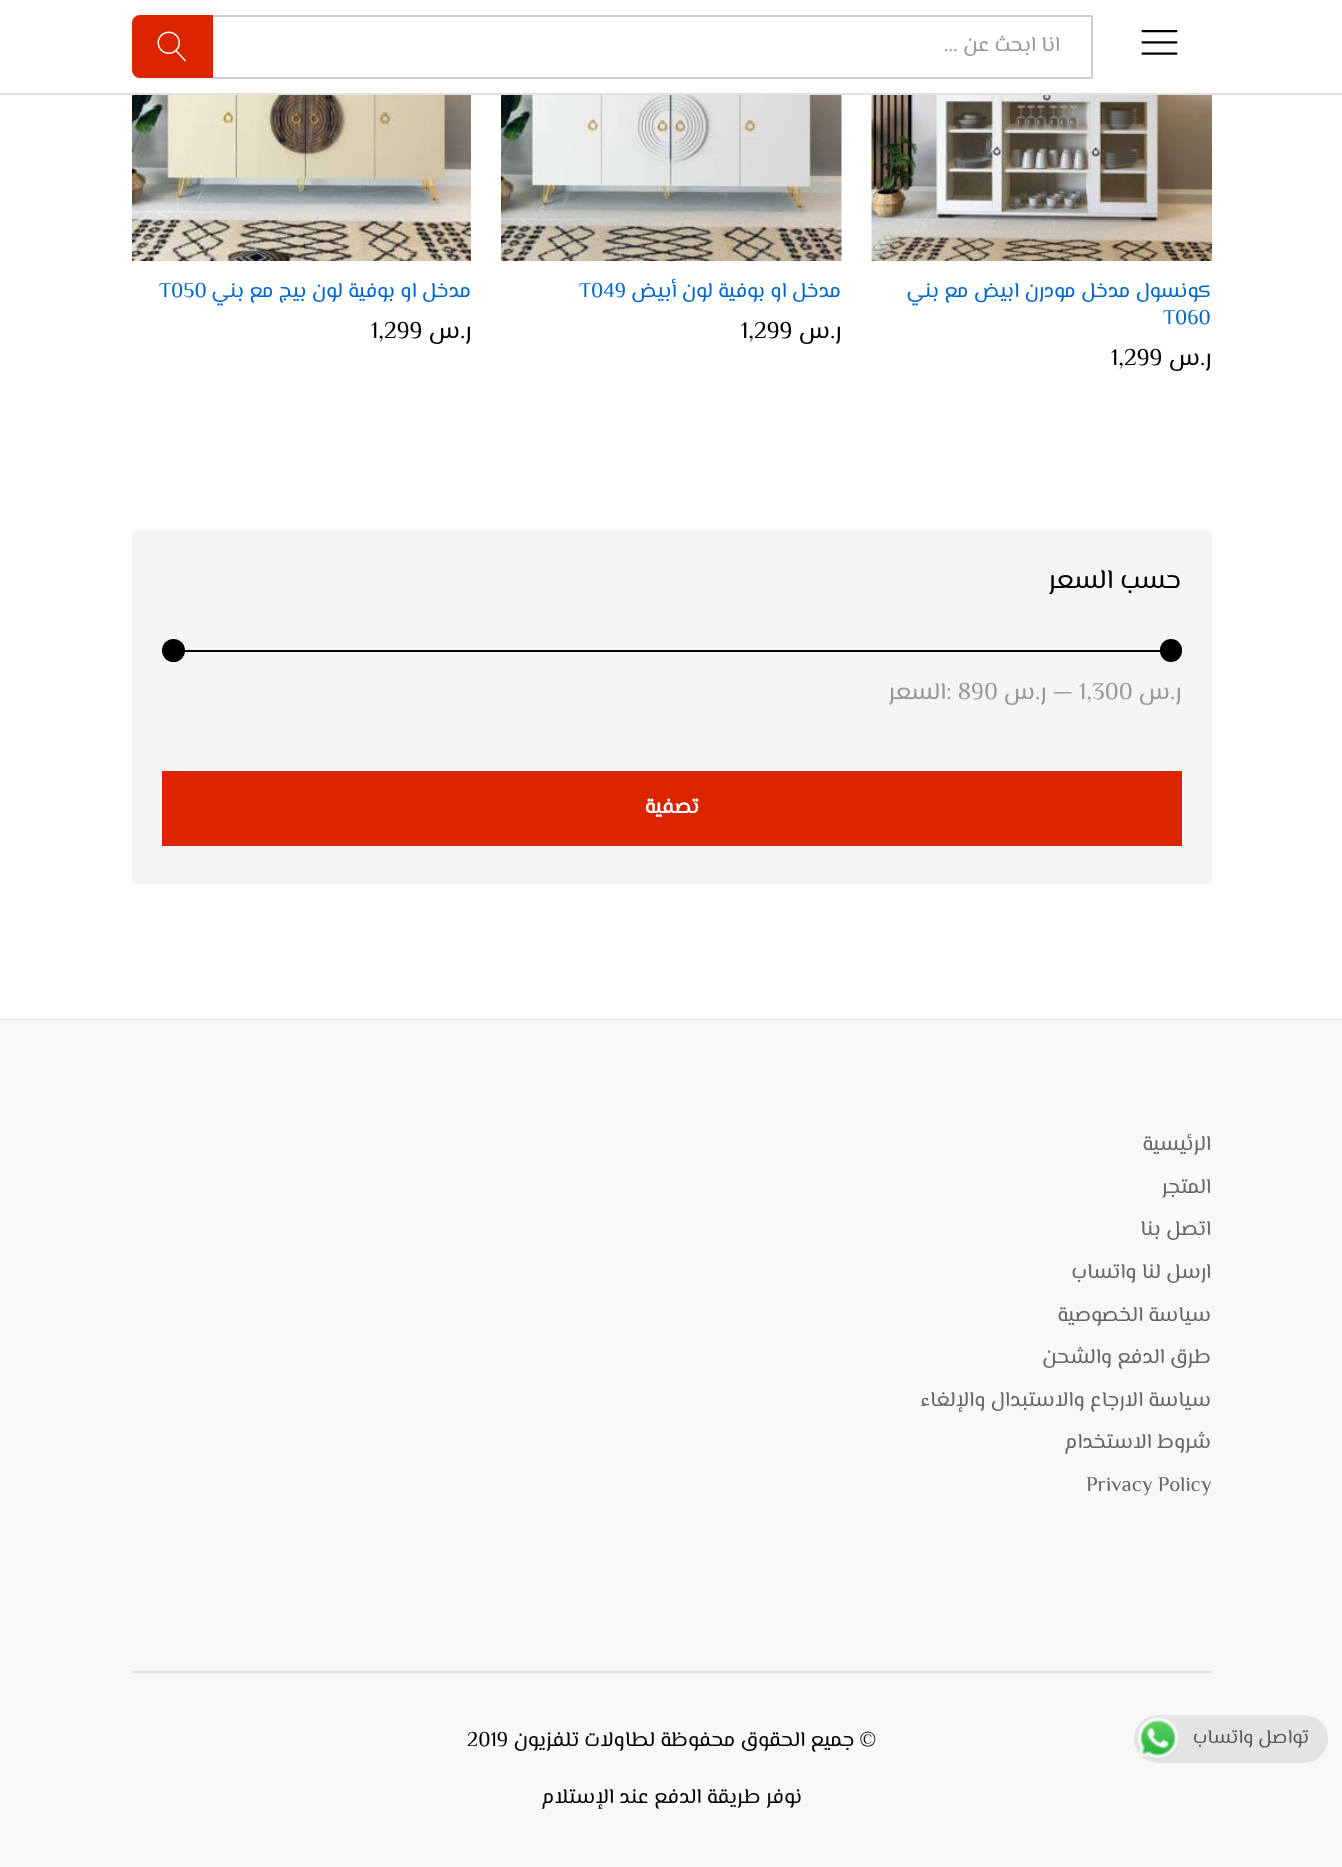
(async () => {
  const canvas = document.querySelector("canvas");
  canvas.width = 1342;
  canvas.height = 1867;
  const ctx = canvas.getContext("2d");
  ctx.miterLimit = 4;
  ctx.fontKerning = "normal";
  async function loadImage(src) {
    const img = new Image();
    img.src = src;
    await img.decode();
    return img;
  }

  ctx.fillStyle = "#ffffff";
  ctx.fillRect(0, 0, 1342, 1867);
  ctx.fillStyle = "#f8f8f8";
  ctx.fillRect(0, 1020, 1342, 847);
  ctx.fillStyle = "#e4e4e4";
  ctx.beginPath();
  ctx.roundRect(1134, 1715, 194, 48, 24);
  ctx.fill();
  ctx.drawImage(await loadImage("img/1.png"), 1137, 1717, 42, 43);
  ctx.fillStyle = "#e1e1e1";
  ctx.fillRect(0, 93, 1342, 2);
  ctx.drawImage(await loadImage("img/2.png"), 1141, 30, 37, 25);
  for (const [x, y, w, h, color] of [
    [213, 15, 879, 2, "#cccccc"],
    [1091, 15, 2, 63, "#cccccc"],
    [213, 77, 879, 2, "#cccccc"],
  ]) {
    ctx.fillStyle = color;
    ctx.fillRect(x, y, w, h);
  }
  ctx.fillStyle = "#dd2400";
  ctx.beginPath();
  ctx.roundRect(132, 15, 81, 63, [8, 0, 0, 8]);
  ctx.fill();
  ctx.drawImage(await loadImage("img/3.png"), 157, 31, 29, 31);
  ctx.drawImage(await loadImage("img/4.png"), 871, 95, 341, 166);
  ctx.drawImage(await loadImage("img/5.png"), 501, 95, 341, 166);
  ctx.drawImage(await loadImage("img/6.png"), 132, 95, 339, 166);
  ctx.fillStyle = "#f5f5f5";
  ctx.fillRect(132, 530, 1080, 354);
  ctx.fillStyle = "#000000";
  ctx.fillRect(162, 650, 998, 2);
  ctx.beginPath();
  ctx.roundRect(1160, 639, 22, 23, 11);
  ctx.fill();
  ctx.beginPath();
  ctx.arc(173.5, 650.5, 11.5, 0, Math.PI * 2);
  ctx.fill();
  for (const [x, y, w, h, color] of [
    [162, 771, 1020, 75, "#dd2400"],
    [0, 1019, 1342, 1, "#e1e1e1"],
    [132, 1671, 1080, 2, "#e1e1e1"],
  ]) {
    ctx.fillStyle = color;
    ctx.fillRect(x, y, w, h);
  }
  ctx.direction = "rtl";
  ctx.font = "19.5px El Messiri";
  ctx.fillStyle = "#5b5b5b";
  ctx.fillText("تواصل واتساب", 1309, 1743);
  ctx.font = "21px El Messiri";
  ctx.fillStyle = "#999999";
  ctx.fillText("انا ابحث عن ...", 1060, 51);
  ctx.fillStyle = "#0066cc";
  ctx.fillText("كونسول مدخل مودرن ابيض مع بني", 1211, 297);
  ctx.direction = "ltr";
  ctx.fillText("T060", 1163, 324);
  ctx.direction = "rtl";
  ctx.font = "24px El Messiri";
  ctx.fillStyle = "#000000";
  ctx.fillText("ر.س", 1211, 365);
  ctx.direction = "ltr";
  ctx.fillText("1,299", 1111, 365);
  ctx.direction = "rtl";
  ctx.font = "21px El Messiri";
  ctx.fillStyle = "#0066cc";
  ctx.fillText("مدخل او بوفية لون أبيض", 841, 297);
  ctx.direction = "ltr";
  ctx.fillText("T049", 579, 297);
  ctx.direction = "rtl";
  ctx.font = "24px El Messiri";
  ctx.fillStyle = "#000000";
  ctx.fillText("ر.س", 841, 338);
  ctx.direction = "ltr";
  ctx.fillText("1,299", 741, 338);
  ctx.direction = "rtl";
  ctx.font = "21px El Messiri";
  ctx.fillStyle = "#0066cc";
  ctx.fillText("مدخل او بوفية لون بيج مع بني", 471, 297);
  ctx.direction = "ltr";
  ctx.fillText("T050", 159, 297);
  ctx.direction = "rtl";
  ctx.font = "24px El Messiri";
  ctx.fillStyle = "#000000";
  ctx.fillText("ر.س", 471, 338);
  ctx.direction = "ltr";
  ctx.fillText("1,299", 371, 338);
  ctx.direction = "rtl";
  ctx.font = "27px El Messiri";
  ctx.fillText("حسب السعر", 1181, 588);
  ctx.font = "24px El Messiri";
  ctx.fillStyle = "#999999";
  ctx.fillText("ر.س", 1181, 699);
  ctx.direction = "ltr";
  ctx.fillText("— 1,300", 1052, 699);
  ctx.direction = "rtl";
  ctx.fillText("ر.س", 1046, 699);
  ctx.direction = "ltr";
  ctx.fillText(": 890", 946, 699);
  ctx.direction = "rtl";
  ctx.fillText("السعر", 946, 699);
  ctx.font = "bold 21px El Messiri";
  ctx.fillStyle = "#ffffff";
  ctx.fillText("تصفية", 699, 813);
  ctx.font = "21px El Messiri";
  ctx.fillStyle = "#666666";
  for (const [text, x, y] of [
    ["الرئيسية", 1211, 1150],
    ["المتجر", 1211, 1193],
    ["اتصل بنا", 1211, 1235],
    ["ارسل لنا واتساب", 1211, 1278],
    ["سياسة الخصوصية", 1211, 1321],
    ["طرق الدفع والشحن", 1211, 1363],
    ["سياسة الارجاع والاستبدال والإلغاء", 1211, 1406],
    ["شروط الاستخدام", 1211, 1448],
  ]) {
    ctx.fillText(text, x, y);
  }
  ctx.direction = "ltr";
  ctx.fillText("Privacy Policy", 1086, 1491);
  ctx.direction = "rtl";
  ctx.fillStyle = "#000000";
  ctx.fillText("© جميع الحقوق محفوظة لطاولات تلفزيون", 876, 1746);
  ctx.direction = "ltr";
  ctx.fillText("2019", 467, 1746);
  ctx.direction = "rtl";
  ctx.fillText("نوفر طريقة الدفع عند الإستلام", 802, 1803);
})();
